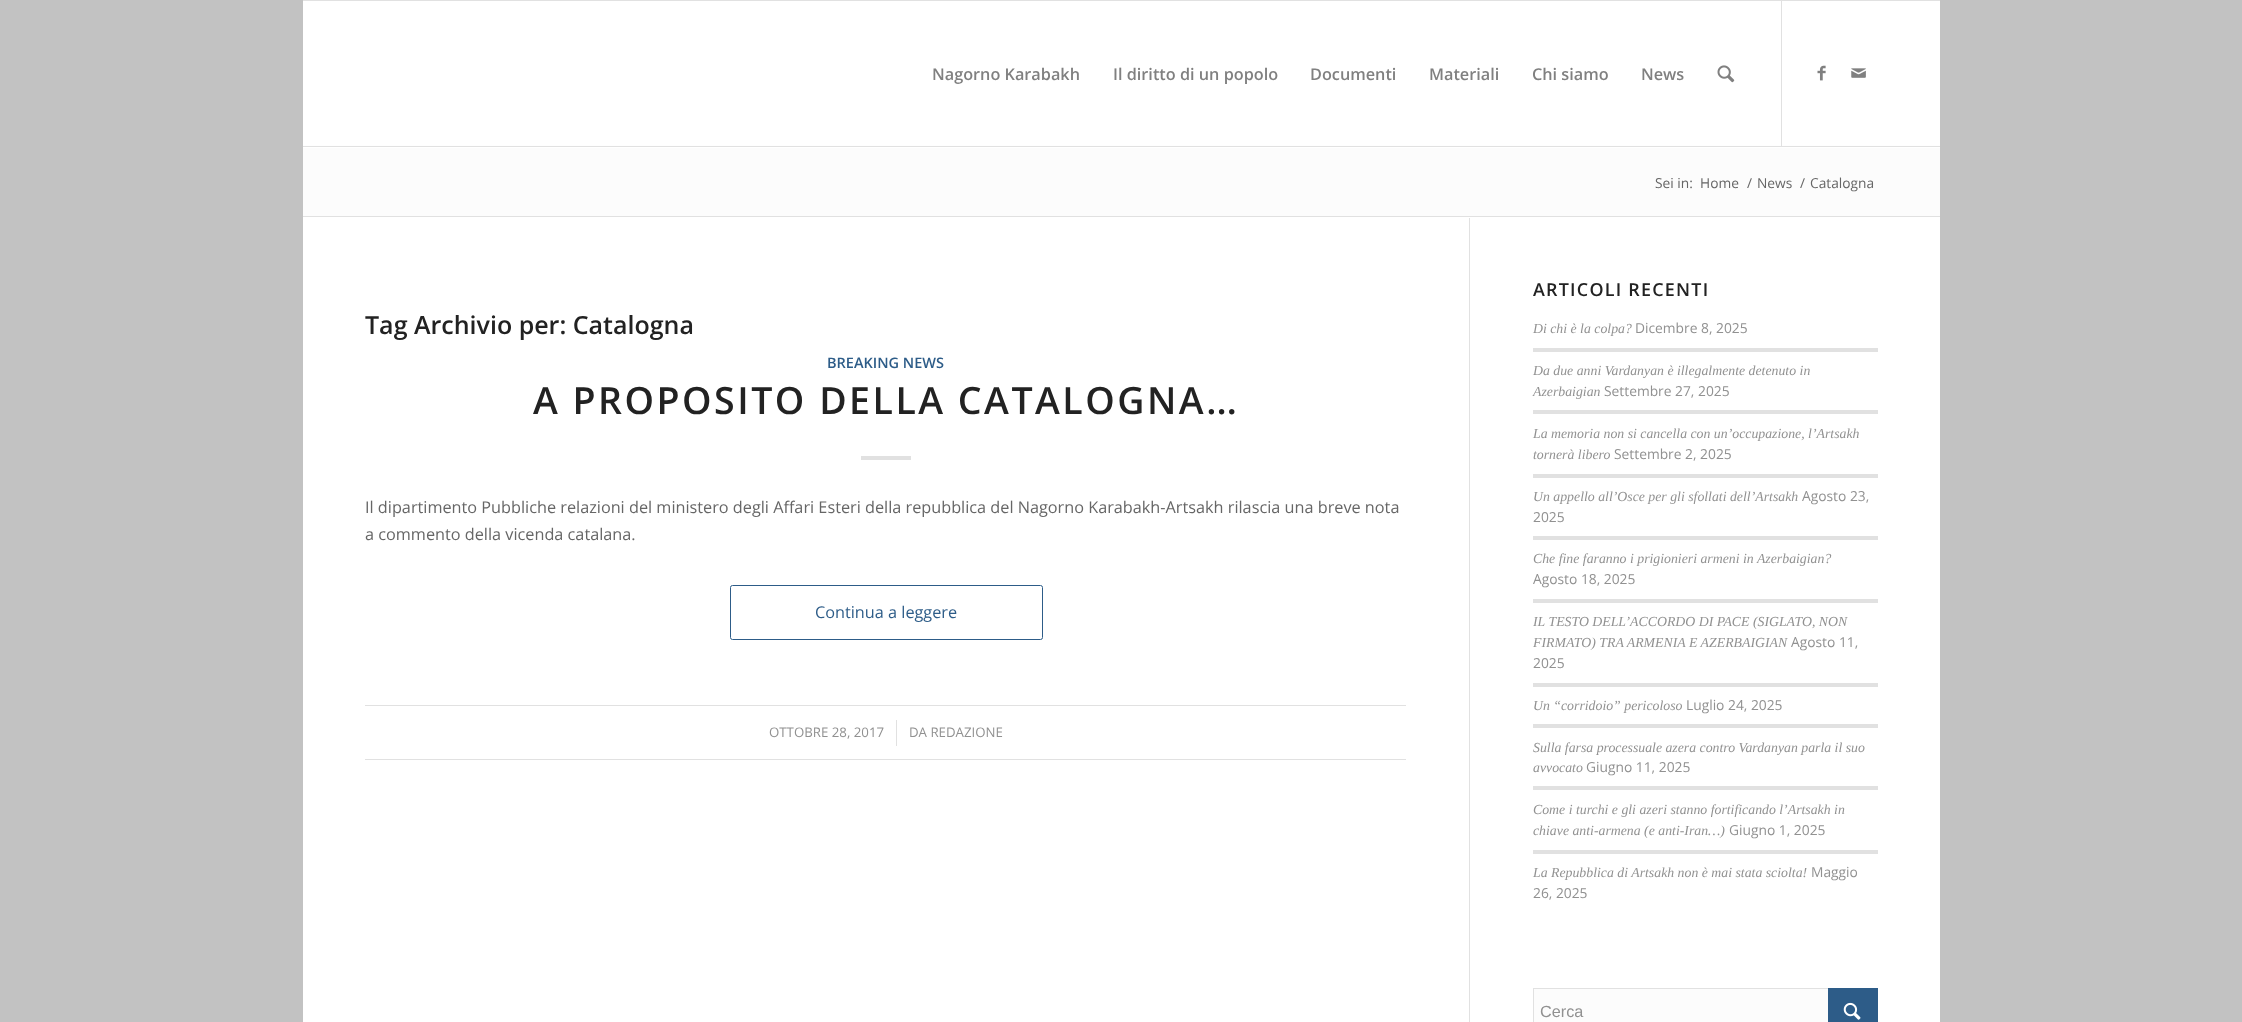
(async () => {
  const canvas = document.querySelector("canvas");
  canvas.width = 2242;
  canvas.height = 1022;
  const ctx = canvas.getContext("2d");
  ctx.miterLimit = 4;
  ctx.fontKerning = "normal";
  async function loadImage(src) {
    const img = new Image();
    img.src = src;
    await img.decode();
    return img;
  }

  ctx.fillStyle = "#c2c2c2";
  ctx.fillRect(0, 0, 2242, 1022);
  for (const [x, y, w, h, color] of [
    [303, 0, 1637, 1, "#e1e1e1"],
    [303, 146, 1637, 1, "#e1e1e1"],
    [303, 1, 1637, 144, "#ffffff"],
    [303, 145, 1637, 1, "#fefefe"],
    [1781, 1, 1, 145, "#e1e1e1"],
  ]) {
    ctx.fillStyle = color;
    ctx.fillRect(x, y, w, h);
  }
  ctx.drawImage(await loadImage("img/1.png"), 1717, 65, 18, 18);
  ctx.drawImage(await loadImage("img/2.png"), 1817, 65, 9, 16);
  ctx.drawImage(await loadImage("img/3.png"), 1851, 68, 15, 10);
  for (const [x, y, w, h, color] of [
    [303, 217, 1637, 805, "#ffffff"],
    [303, 148, 1637, 68, "#fcfcfc"],
    [303, 147, 1637, 1, "#ffffff"],
    [303, 216, 1637, 1, "#e1e1e1"],
    [861, 456, 50, 4, "#e1e1e1"],
  ]) {
    ctx.fillStyle = color;
    ctx.fillRect(x, y, w, h);
  }
  ctx.beginPath();
  ctx.roundRect(730.5, 585.5, 312, 54, 2);
  ctx.strokeStyle = "#2d5c88";
  ctx.stroke();
  for (const [x, y, w, h, color] of [
    [365, 705, 1041, 1, "#e1e1e1"],
    [365, 759, 1041, 1, "#e1e1e1"],
    [896, 720, 1, 26, "#e1e1e1"],
    [1469, 218, 1, 804, "#e1e1e1"],
    [1533, 348, 345, 4, "#e1e1e1"],
    [1533, 410, 345, 4, "#e1e1e1"],
    [1533, 474, 345, 4, "#e1e1e1"],
    [1533, 536, 345, 4, "#e1e1e1"],
    [1533, 599, 345, 4, "#e1e1e1"],
    [1533, 683, 345, 4, "#e1e1e1"],
    [1533, 724, 345, 4, "#e1e1e1"],
    [1533, 786, 345, 4, "#e1e1e1"],
    [1533, 850, 345, 4, "#e1e1e1"],
    [1534, 989, 294, 33, "#fcfcfc"],
  ]) {
    ctx.fillStyle = color;
    ctx.fillRect(x, y, w, h);
  }
  ctx.strokeStyle = "#e1e1e1";
  ctx.strokeRect(1533.5, 988.5, 344, 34);
  ctx.fillStyle = "#2d5c88";
  ctx.fillRect(1828, 988, 50, 34);
  ctx.drawImage(await loadImage("img/4.png"), 1843, 1002, 18, 18);
  ctx.font = "600 16.25px Open Sans";
  ctx.fillStyle = "#808080";
  for (const [text, x, y] of [
    ["Nagorno Karabakh", 932, 80],
    ["Il diritto di un popolo", 1113, 80],
    ["Documenti", 1310, 80],
    ["Materiali", 1429, 80],
    ["Chi siamo", 1532, 80],
    ["News", 1641, 80],
  ]) {
    ctx.fillText(text, x, y);
  }
  ctx.font = "13.75px Open Sans";
  ctx.fillStyle = "#666666";
  for (const [text, x, y] of [
    ["Sei in:", 1655, 188],
    ["Home", 1700, 188],
    ["/", 1747, 188],
    ["News", 1757, 188],
    ["/", 1800, 188],
    ["Catalogna", 1810, 188],
  ]) {
    ctx.fillText(text, x, y);
  }
  ctx.font = "600 25px Open Sans";
  ctx.fillStyle = "#222222";
  ctx.fillText("Tag Archivio per: Catalogna", 365, 334);
  ctx.font = "600 14.5px Open Sans";
  ctx.fillStyle = "#2d5c88";
  ctx.fillText("BREAKING NEWS", 827, 368);
  ctx.letterSpacing = "2.5px";
  ctx.font = "600 37.5px Open Sans";
  ctx.fillStyle = "#222222";
  ctx.fillText("A PROPOSITO DELLA CATALOGNA…", 533, 414);
  ctx.letterSpacing = "0px";
  ctx.font = "16.25px Open Sans";
  ctx.fillStyle = "#666666";
  ctx.fillText("Il dipartimento Pubbliche relazioni del ministero degli Affari Esteri della repubblica del Nagorno Karabakh-Artsakh rilascia una breve nota", 365, 513);
  ctx.fillText("a commento della vicenda catalana.", 365, 540);
  ctx.fillStyle = "#2d5c88";
  ctx.fillText("Continua a leggere", 815, 618);
  ctx.font = "13.25px Open Sans";
  ctx.fillStyle = "#919191";
  ctx.fillText("OTTOBRE 28, 2017", 769, 737);
  ctx.fillText("DA REDAZIONE", 909, 737);
  ctx.letterSpacing = "1.25px";
  ctx.font = "600 17.9px Open Sans";
  ctx.fillStyle = "#222222";
  ctx.fillText("ARTICOLI RECENTI", 1533, 296);
  ctx.letterSpacing = "0px";
  ctx.font = "italic 13.8px Liberation Serif";
  ctx.fillStyle = "#919191";
  ctx.fillText("Di chi è la colpa?", 1533, 333);
  ctx.font = "13.8px Open Sans";
  ctx.fillText("Dicembre 8, 2025", 1635, 333);
  ctx.font = "italic 13.8px Liberation Serif";
  ctx.fillText("Da due anni Vardanyan è illegalmente detenuto in", 1533, 375);
  ctx.fillText("Azerbaigian", 1533, 396);
  ctx.font = "13.8px Open Sans";
  ctx.fillText("Settembre 27, 2025", 1604, 396);
  ctx.font = "italic 13.8px Liberation Serif";
  ctx.fillText("La memoria non si cancella con un’occupazione, l’Artsakh", 1533, 438);
  ctx.fillText("tornerà libero", 1533, 459);
  ctx.font = "13.8px Open Sans";
  ctx.fillText("Settembre 2, 2025", 1614, 459);
  ctx.font = "italic 13.8px Liberation Serif";
  ctx.fillText("Un appello all’Osce per gli sfollati dell’Artsakh", 1533, 501);
  ctx.font = "13.8px Open Sans";
  ctx.fillText("Agosto 23,", 1802, 501);
  ctx.fillText("2025", 1533, 522);
  ctx.font = "italic 13.8px Liberation Serif";
  ctx.fillText("Che fine faranno i prigionieri armeni in Azerbaigian?", 1533, 563);
  ctx.font = "13.8px Open Sans";
  ctx.fillText("Agosto 18, 2025", 1533, 584);
  ctx.font = "italic 13.8px Liberation Serif";
  ctx.fillText("IL TESTO DELL’ACCORDO DI PACE (SIGLATO, NON", 1533, 626);
  ctx.fillText("FIRMATO) TRA ARMENIA E AZERBAIGIAN", 1533, 647);
  ctx.font = "13.8px Open Sans";
  ctx.fillText("Agosto 11,", 1791, 647);
  ctx.fillText("2025", 1533, 668);
  ctx.font = "italic 13.8px Liberation Serif";
  ctx.fillText("Un “corridoio” pericoloso", 1533, 710);
  ctx.font = "13.8px Open Sans";
  ctx.fillText("Luglio 24, 2025", 1686, 710);
  ctx.font = "italic 13.8px Liberation Serif";
  ctx.fillText("Sulla farsa processuale azera contro Vardanyan parla il suo", 1533, 752);
  ctx.fillText("avvocato", 1533, 772);
  ctx.font = "13.8px Open Sans";
  ctx.fillText("Giugno 11, 2025", 1586, 772);
  ctx.font = "italic 13.8px Liberation Serif";
  ctx.fillText("Come i turchi e gli azeri stanno fortificando l’Artsakh in", 1533, 814);
  ctx.fillText("chiave anti-armena (e anti-Iran…)", 1533, 835);
  ctx.font = "13.8px Open Sans";
  ctx.fillText("Giugno 1, 2025", 1729, 835);
  ctx.font = "italic 13.8px Liberation Serif";
  ctx.fillText("La Repubblica di Artsakh non è mai stata sciolta!", 1533, 877);
  ctx.font = "13.8px Open Sans";
  ctx.fillText("Maggio", 1811, 877);
  ctx.fillText("26, 2025", 1533, 898);
  ctx.font = "16.25px Liberation Sans";
  ctx.fillText("Cerca", 1540, 1017);
})();
